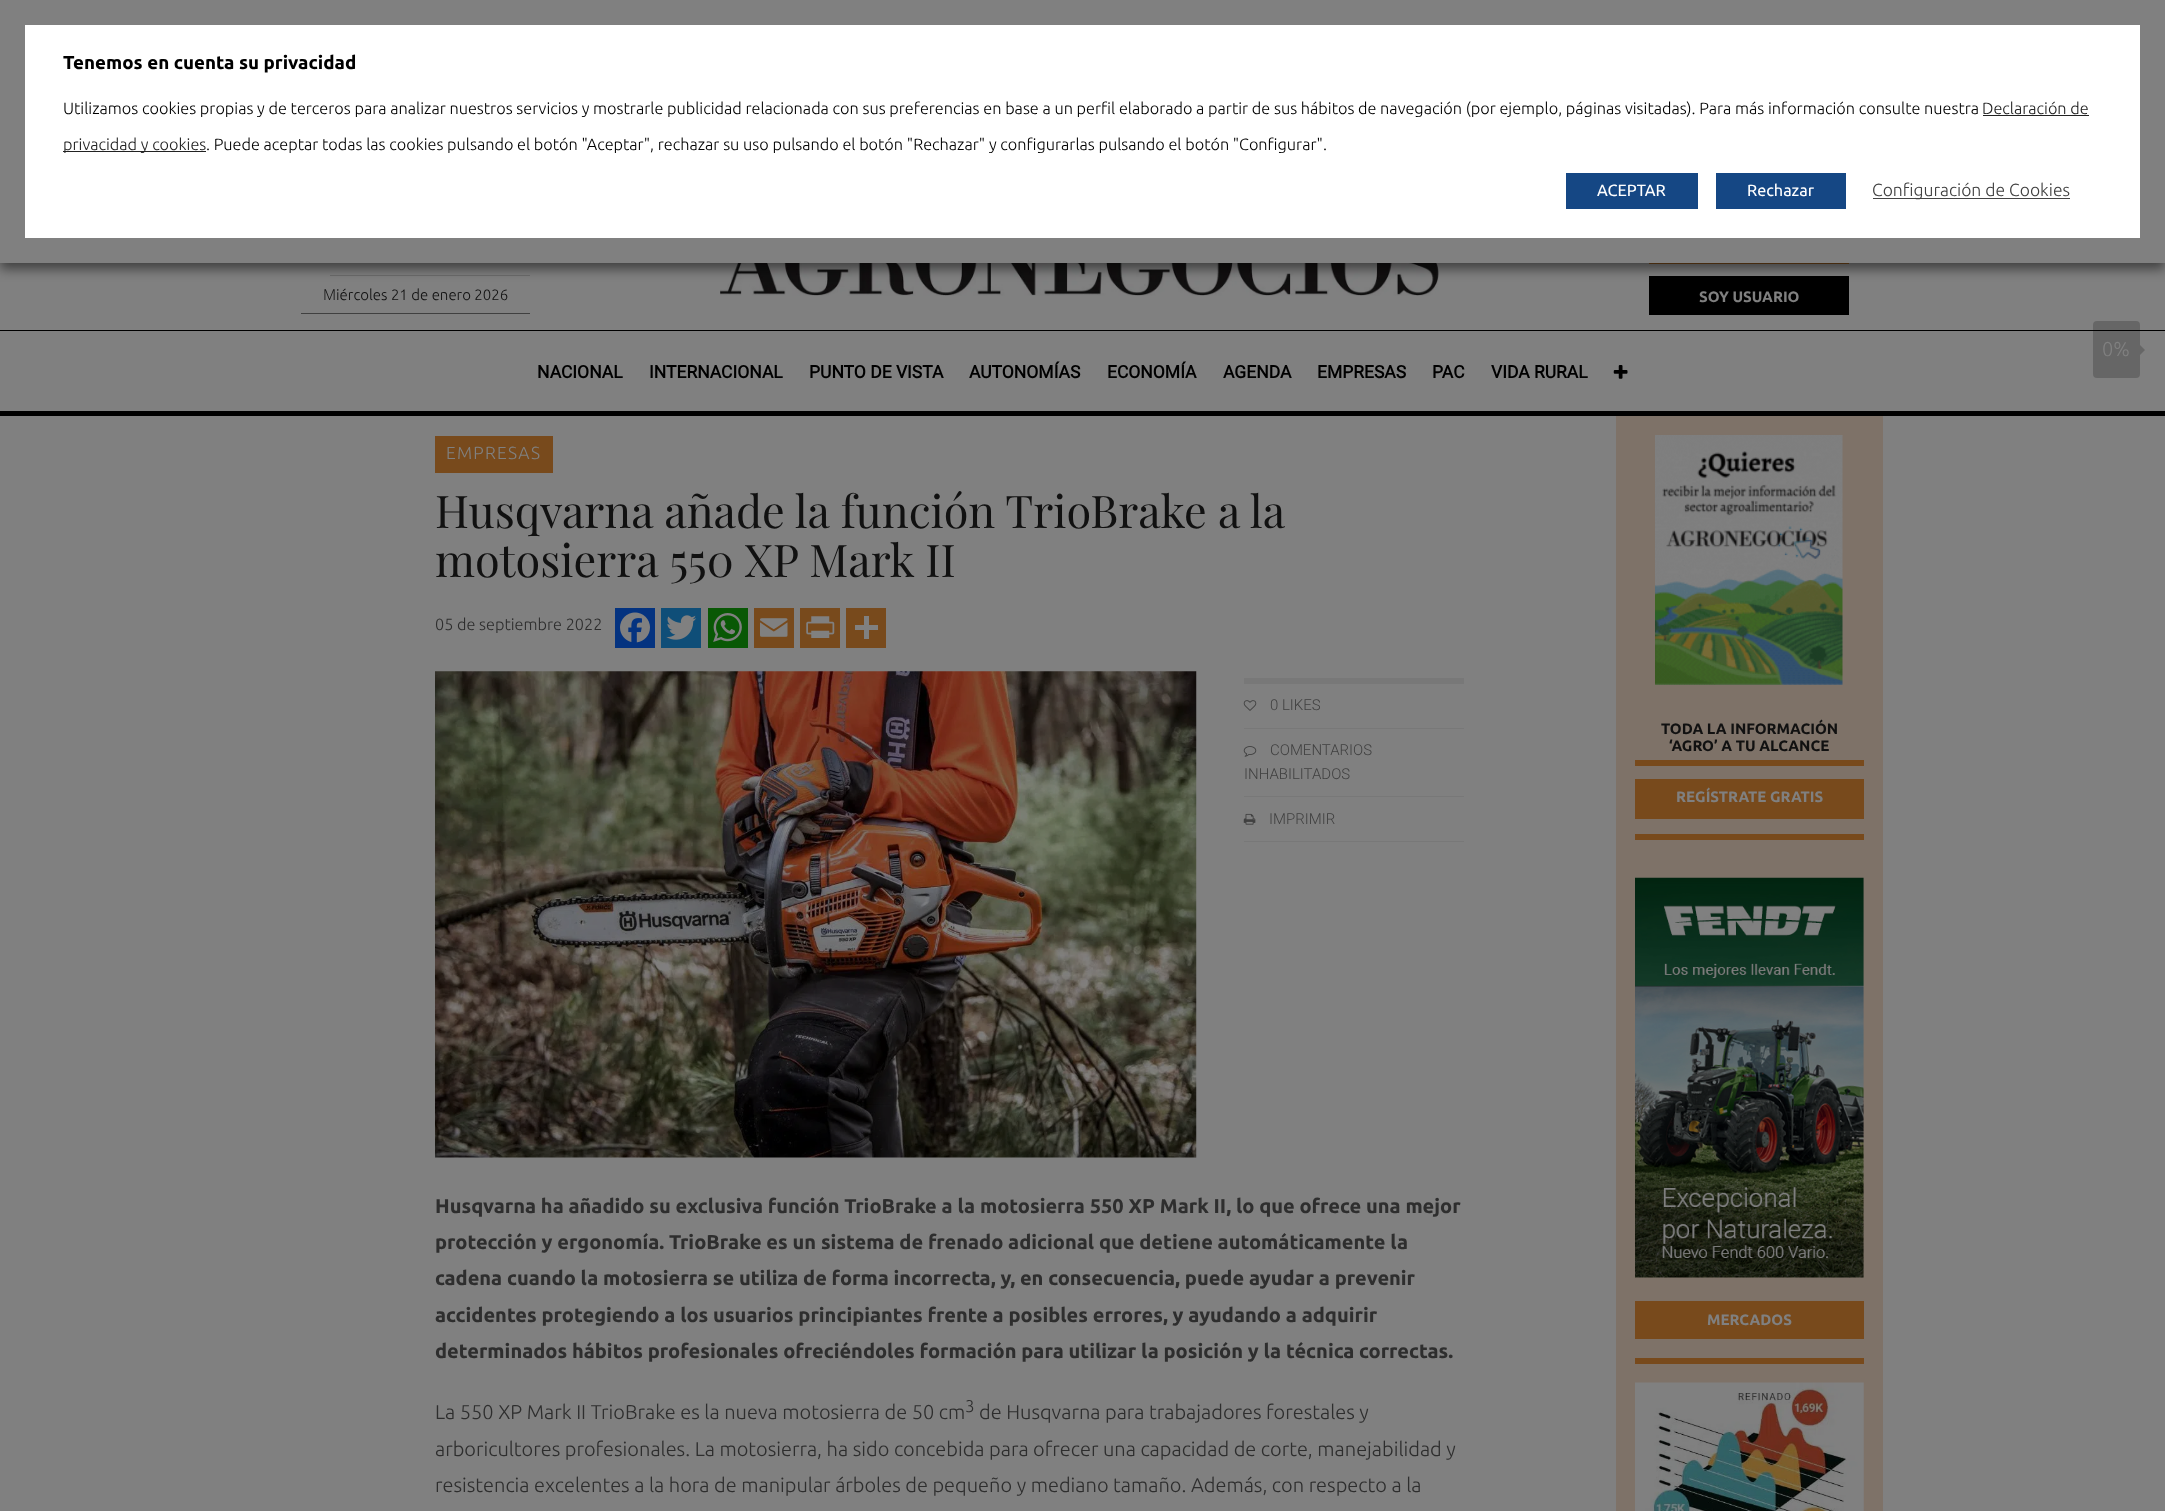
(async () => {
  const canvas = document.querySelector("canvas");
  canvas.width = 2165;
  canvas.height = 1511;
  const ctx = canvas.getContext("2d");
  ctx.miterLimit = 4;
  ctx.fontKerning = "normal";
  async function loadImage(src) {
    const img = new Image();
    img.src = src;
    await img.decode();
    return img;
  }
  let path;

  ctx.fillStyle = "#808080";
  ctx.fillRect(0, 0, 2165, 1511);
  ctx.fillStyle = "#6c6c6c";
  ctx.fillRect(330, 275, 200, 1);
  ctx.drawImage(await loadImage("img/1.png"), 720, 263, 719, 33);
  ctx.fillStyle = "#784a1c";
  ctx.fillRect(1649, 263, 200, 1);
  ctx.fillStyle = "#000000";
  ctx.fillRect(1649, 276, 200, 39);
  ctx.fillStyle = "rgba(0, 0, 0, 0.5)";
  ctx.filter = "blur(6px)";
  ctx.beginPath();
  ctx.rect(0, 6, 2165, 263);
  ctx.fill();
  ctx.filter = "none";
  ctx.fillStyle = "#ffffff";
  ctx.beginPath();
  ctx.rect(12.5, 12.5, 2140, 238);
  ctx.fill();
  ctx.strokeStyle = "#808080";
  ctx.lineWidth = 25;
  ctx.stroke();
  for (const [x, y, w, h, color] of [
    [1983, 115, 106, 1, "#222222"],
    [63, 151, 143, 1, "#222222"],
    [1566, 173, 132, 36, "#154784"],
    [1716, 173, 130, 36, "#154784"],
    [1873, 198, 197, 1, "#444444"],
    [301, 313, 229, 1, "#404040"],
    [0, 330, 2165, 1, "#000000"],
  ]) {
    ctx.fillStyle = color;
    ctx.fillRect(x, y, w, h);
  }
  ctx.drawImage(await loadImage("img/2.png"), 1613, 365, 15, 14);
  for (const [x, y, w, h, color] of [
    [0, 411, 2165, 5, "#000000"],
    [435, 436, 118, 37, "#784a1c"],
    [615, 608, 40, 40, "#043380"],
  ]) {
    ctx.fillStyle = color;
    ctx.fillRect(x, y, w, h);
  }
  ctx.drawImage(await loadImage("img/3.png"), 620, 612, 30, 31);
  ctx.fillStyle = "#0f4e78";
  ctx.fillRect(661, 608, 40, 40);
  ctx.drawImage(await loadImage("img/4.png"), 666, 615, 31, 25);
  ctx.fillStyle = "#095805";
  ctx.fillRect(708, 608, 40, 40);
  ctx.drawImage(await loadImage("img/5.png"), 713, 613, 29, 29);
  ctx.fillStyle = "#784a1c";
  ctx.fillRect(754, 608, 40, 40);
  ctx.drawImage(await loadImage("img/6.png"), 760, 618, 28, 19);
  ctx.fillRect(800, 608, 40, 40);
  ctx.drawImage(await loadImage("img/7.png"), 806, 616, 29, 22);
  for (const [x, y, w, h, color] of [
    [846, 608, 40, 40, "#784a1c"],
    [864, 616, 5, 23, "#808080"],
    [855, 625, 23, 5, "#808080"],
  ]) {
    ctx.fillStyle = color;
    ctx.fillRect(x, y, w, h);
  }
  ctx.drawImage(await loadImage("img/8.png"), 435, 671, 762, 487);
  ctx.fillStyle = "#787878";
  ctx.fillRect(1244, 678, 220, 6);
  ctx.fillRect(1244, 728, 220, 1);
  ctx.drawImage(await loadImage("img/9.png"), 1243, 700, 14, 11);
  ctx.fillRect(1244, 796, 220, 1);
  ctx.drawImage(await loadImage("img/10.png"), 1243, 746, 14, 11);
  ctx.fillRect(1244, 841, 220, 1);
  ctx.drawImage(await loadImage("img/11.png"), 1243, 813, 13, 12);
  ctx.fillStyle = "#7e7268";
  ctx.fillRect(1616, 416, 267, 1095);
  ctx.drawImage(await loadImage("img/12.png"), 1655, 435, 188, 250);
  for (const [x, y, w, h, color] of [
    [1635, 760, 229, 6, "#784a1c"],
    [1635, 834, 229, 6, "#784a1c"],
    [1635, 779, 229, 40, "#784a1c"],
  ]) {
    ctx.fillStyle = color;
    ctx.fillRect(x, y, w, h);
  }
  ctx.drawImage(await loadImage("img/13.png"), 1635, 877, 229, 401);
  ctx.fillRect(1635, 1301, 229, 38);
  ctx.fillRect(1635, 1358, 229, 6);
  ctx.drawImage(await loadImage("img/14.png"), 1635, 1382, 229, 129);
  ctx.fillStyle = "rgba(0, 0, 0, 0.2)";
  ctx.beginPath();
  ctx.roundRect(2093, 321, 47, 57, 4);
  ctx.fill();
  ctx.fillStyle = "#666666";
  path = new Path2D("M2140 355V345L2145 350Z");
  ctx.fill(path);
  ctx.font = "bold 18.75px Ubuntu";
  ctx.fillStyle = "#000000";
  ctx.fillText("Tenemos en cuenta su privacidad", 63, 69);
  ctx.font = "300 16.25px Ubuntu";
  ctx.fillText("Utilizamos cookies propias y de terceros para analizar nuestros servicios y mostrarle publicidad relacionada con sus preferencias en base a un perfil elaborado a partir de sus hábitos de navegación (por ejemplo, páginas visitadas). Para más información consulte nuestra", 63, 114);
  ctx.fillStyle = "#222222";
  ctx.fillText("Declaración de", 1982, 114);
  ctx.fillText("privacidad y cookies", 63, 150);
  ctx.fillStyle = "#000000";
  ctx.fillText(". Puede aceptar todas las cookies pulsando el botón \"Aceptar\", rechazar su uso pulsando el botón \"Rechazar\" y configurarlas pulsando el botón \"Configurar\".", 206, 150);
  ctx.font = "16.25px Ubuntu";
  ctx.fillStyle = "#ffffff";
  ctx.fillText("ACEPTAR", 1597, 196);
  ctx.fillText("Rechazar", 1747, 196);
  ctx.font = "300 17.5px Ubuntu";
  ctx.fillStyle = "#404040";
  ctx.fillText("Configuración de Cookies", 1872, 196);
  ctx.font = "300 15px Noto Sans";
  ctx.fillStyle = "#111111";
  ctx.fillText("M", 323, 300);
  ctx.font = "300 15px Ubuntu";
  ctx.fillText("iércoles 21 de enero 2026", 336, 300);
  ctx.font = "bold 15px Ubuntu";
  ctx.fillStyle = "#808080";
  ctx.fillText("SOY USUARIO", 1699, 302);
  ctx.font = "bold 17.5px Roboto";
  ctx.fillStyle = "#000000";
  for (const [text, x, y] of [
    ["NACIONAL", 537, 378],
    ["INTERNACIONAL", 649, 378],
    ["PUNTO DE VISTA", 809, 378],
    ["AUTONOMÍAS", 969, 378],
    ["ECONOMÍA", 1107, 378],
    ["AGENDA", 1223, 378],
    ["EMPRESAS", 1317, 378],
    ["PAC", 1432, 378],
    ["VIDA RURAL", 1491, 378],
  ]) {
    ctx.fillText(text, x, y);
  }
  ctx.letterSpacing = "1.25px";
  ctx.font = "300 17.5px Ubuntu";
  ctx.fillStyle = "#808080";
  ctx.fillText("EMPRESAS", 446, 459);
  ctx.letterSpacing = "0px";
  ctx.font = "45px Playfair Display";
  ctx.fillStyle = "#111111";
  ctx.fillText("Husqvarna añade la función TrioBrake a la", 435, 528);
  ctx.fillText("motosierra 550 XP Mark II", 435, 577);
  ctx.font = "300 16.25px Ubuntu";
  ctx.fillStyle = "#2e2e2e";
  ctx.fillText("05 de septiembre 2022", 435, 630);
  ctx.font = "300 15px Roboto";
  ctx.fillStyle = "#404040";
  for (const [text, x, y] of [
    ["0 LIKES", 1270, 710],
    ["COMENTARIOS", 1270, 755],
    ["INHABILITADOS", 1244, 779],
    ["IMPRIMIR", 1269, 824],
  ]) {
    ctx.fillText(text, x, y);
  }
  ctx.font = "bold 20px Ubuntu";
  ctx.fillStyle = "#2e2e2e";
  for (const [text, x, y] of [
    ["Husqvarna ha añadido su exclusiva función TrioBrake a la motosierra 550 XP Mark II, lo que ofrece una mejor", 435, 1213],
    ["protección y ergonomía. TrioBrake es un sistema de frenado adicional que detiene automáticamente la", 435, 1249],
    ["cadena cuando la motosierra se utiliza de forma incorrecta, y, en consecuencia, puede ayudar a prevenir", 435, 1285],
    ["accidentes protegiendo a los usuarios principiantes frente a posibles errores, y ayudando a adquirir", 435, 1322],
    ["determinados hábitos profesionales ofreciéndoles formación para utilizar la posición y la técnica correctas.", 435, 1358],
  ]) {
    ctx.fillText(text, x, y);
  }
  ctx.font = "300 20px Ubuntu";
  ctx.fillText("La 550 XP Mark II TrioBrake es la nueva motosierra de 50 cm", 435, 1419);
  ctx.font = "300 17px Ubuntu";
  ctx.fillText("3", 965, 1412);
  ctx.font = "300 20px Ubuntu";
  for (const [text, x, y] of [
    ["de Husqvarna para trabajadores forestales y", 979, 1419],
    ["arboricultores profesionales. La motosierra, ha sido concebida para ofrecer una capacidad de corte, manejabilidad y", 435, 1456],
    ["resistencia excelentes a la hora de manipular árboles de pequeño y mediano tamaño. Además, con respecto a la", 435, 1492],
  ]) {
    ctx.fillText(text, x, y);
  }
  ctx.font = "bold 15px Ubuntu";
  ctx.fillStyle = "#111111";
  ctx.fillText("TODA LA INFORMACIÓN", 1661, 734);
  ctx.fillText("‘AGRO’ A TU ALCANCE", 1669, 751);
  ctx.fillStyle = "#808080";
  ctx.fillText("REGÍSTRATE GRATIS", 1676, 802);
  ctx.fillText("MERCADOS", 1707, 1325);
  ctx.font = "300 20px Ubuntu";
  ctx.fillText("0%", 2102, 356);
})();
